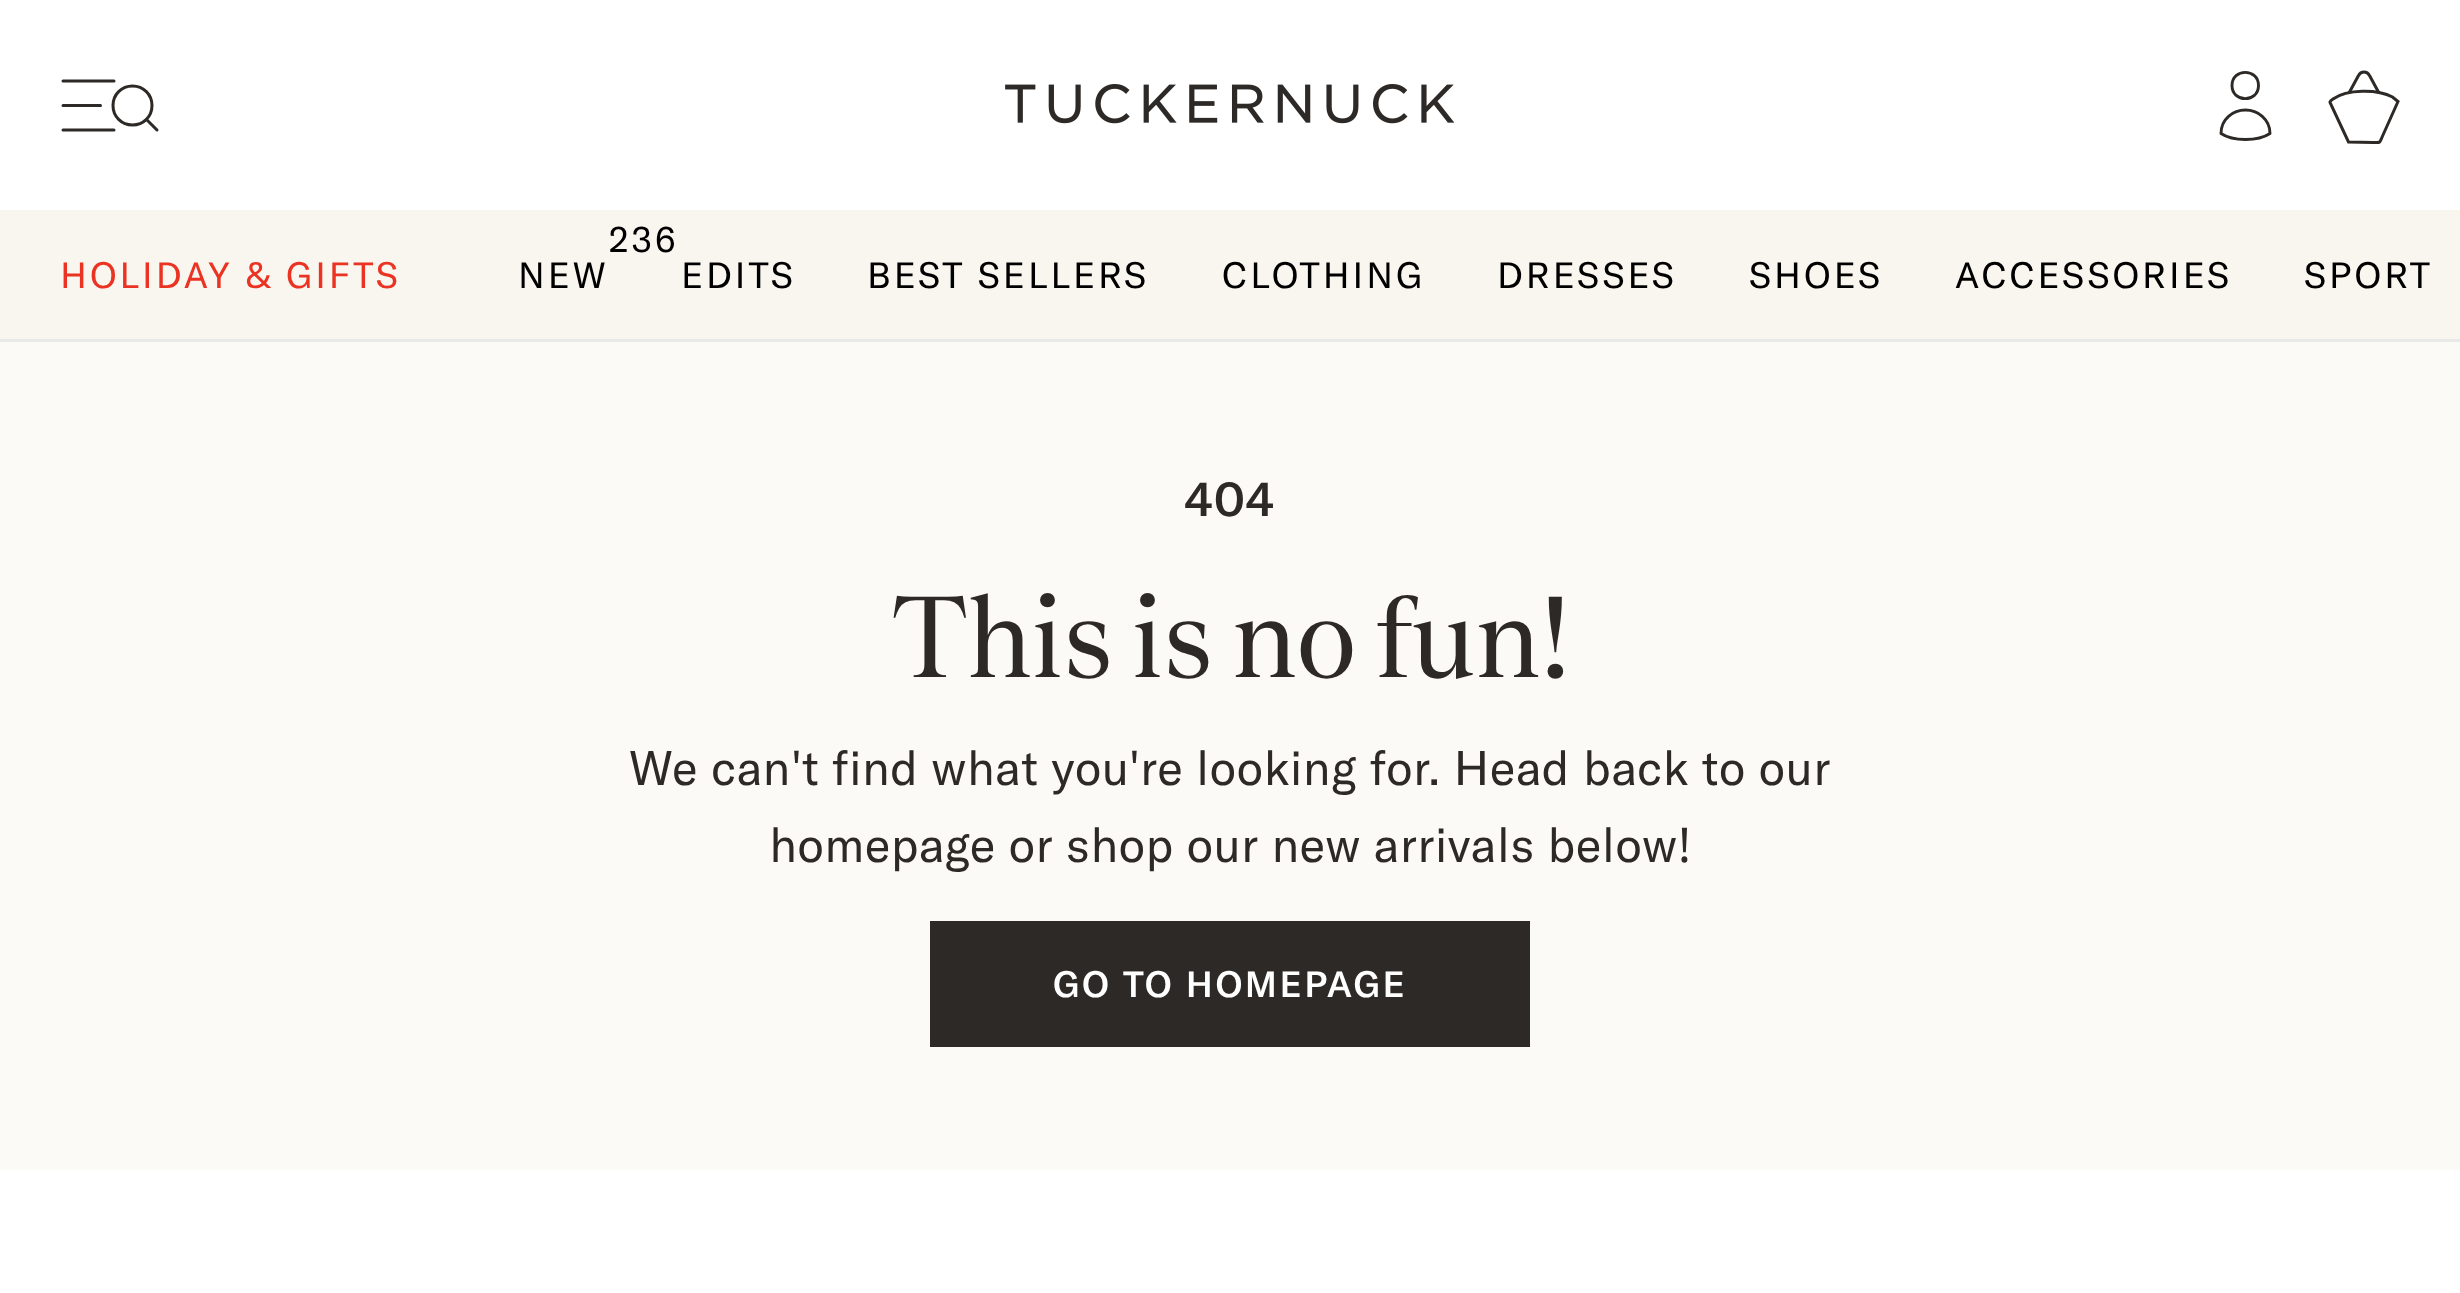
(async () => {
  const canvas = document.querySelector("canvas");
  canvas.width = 2460;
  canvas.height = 1293;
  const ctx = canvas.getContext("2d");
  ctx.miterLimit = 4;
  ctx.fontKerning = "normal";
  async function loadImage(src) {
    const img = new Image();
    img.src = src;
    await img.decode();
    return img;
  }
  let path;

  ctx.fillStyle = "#ffffff";
  ctx.fillRect(0, 0, 2460, 1293);
  path = new Path2D("M132.5 125C143.5 125 152 116.5 152 105.5C152 94.5 143.5 86 132.5 86C121.5 86 113 94.5 113 105.5C113 116.5 121.5 125 132.5 125ZM157 130L146.5 119.5");
  ctx.strokeStyle = "#2d2926";
  ctx.lineWidth = 3;
  ctx.lineCap = "round";
  ctx.lineJoin = "round";
  ctx.stroke(path);
  path = new Path2D("M114 81H63M100.5 105.5H63M114 130H63");
  ctx.lineJoin = "miter";
  ctx.stroke(path);
  ctx.drawImage(await loadImage("img/1.png"), 1005, 84, 450, 40);
  path = new Path2D("M2258.5 85.5C2258.5 103 2232 103 2232 85.5C2232 68 2258.5 68 2258.5 85.5Z");
  ctx.lineWidth = 2.9;
  ctx.lineJoin = "round";
  ctx.stroke(path);
  path = new Path2D("M2245.5 110C2233 110 2221 119 2221 133.5C2233 141.5 2258 141.5 2270 133.5C2270 119 2257.5 110 2245.5 110Z");
  ctx.stroke(path);
  path = new Path2D("M2379 93L2369.5 75.5C2368.5 73.5 2366.5 72 2364 72C2361.5 72 2359.5 73.5 2358.5 75.5L2349 93");
  ctx.lineWidth = 3;
  ctx.lineCap = "butt";
  ctx.lineJoin = "miter";
  ctx.stroke(path);
  path = new Path2D("M2330 102.5C2329.5 101 2332.5 99.5 2333 99C2347 89 2377.5 89 2392.5 97L2398 101.5L2383 135C2379 143.5 2381.5 142.5 2373.5 142.5L2348.5 142Z");
  ctx.stroke(path);
  for (const [x, y, w, h, color] of [
    [0, 210, 2460, 129, "#f8f6ef"],
    [0, 339, 2460, 3, "#eae9e9"],
    [0, 342, 2460, 828, "#fbfaf6"],
    [930, 921, 600, 126, "#2d2926"],
  ]) {
    ctx.fillStyle = color;
    ctx.fillRect(x, y, w, h);
  }
  ctx.letterSpacing = "3px";
  ctx.font = "36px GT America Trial";
  ctx.fillStyle = "#ea3323";
  ctx.fillText("HOLIDAY", 60, 288);
  ctx.font = "36px Noto Sans";
  ctx.fillText("&", 245, 288);
  ctx.font = "36px GT America Trial";
  ctx.fillText("GIFTS", 286, 288);
  ctx.fillStyle = "#000000";
  for (const [text, x, y] of [
    ["236", 609, 252],
    ["NEW", 518, 288],
    ["EDITS", 681, 288],
    ["BEST SELLERS", 867, 288],
    ["CLOTHING", 1222, 288],
    ["DRESSES", 1497, 288],
    ["SHOES", 1749, 288],
    ["ACCESSORIES", 1955, 288],
    ["SPORT", 2304, 288],
  ]) {
    ctx.fillText(text, x, y);
  }
  ctx.letterSpacing = "0.3px";
  ctx.font = "500 48px GT America Trial";
  ctx.fillStyle = "#2d2926";
  ctx.fillText("404", 1184, 516);
  ctx.letterSpacing = "-0.25px";
  ctx.font = "120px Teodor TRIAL";
  ctx.fillText("This is no fun!", 890, 677);
  ctx.letterSpacing = "0.3px";
  ctx.font = "48px GT America Trial";
  ctx.fillText("We can", 629, 785);
  ctx.font = "48px Noto Sans";
  ctx.fillText("'", 791, 785);
  ctx.font = "48px GT America Trial";
  ctx.fillText("t find what you", 802, 785);
  ctx.font = "48px Noto Sans";
  ctx.fillText("'", 1129, 785);
  ctx.font = "48px GT America Trial";
  ctx.fillText("re looking for. Head back to our", 1140, 785);
  ctx.fillText("homepage or shop our new arrivals below", 769, 862);
  ctx.font = "48px Noto Sans";
  ctx.fillText("!", 1678, 862);
  ctx.letterSpacing = "2.5px";
  ctx.font = "500 36px GT America Trial";
  ctx.fillStyle = "#ffffff";
  ctx.fillText("GO TO HOMEPAGE", 1053, 997);
})();
